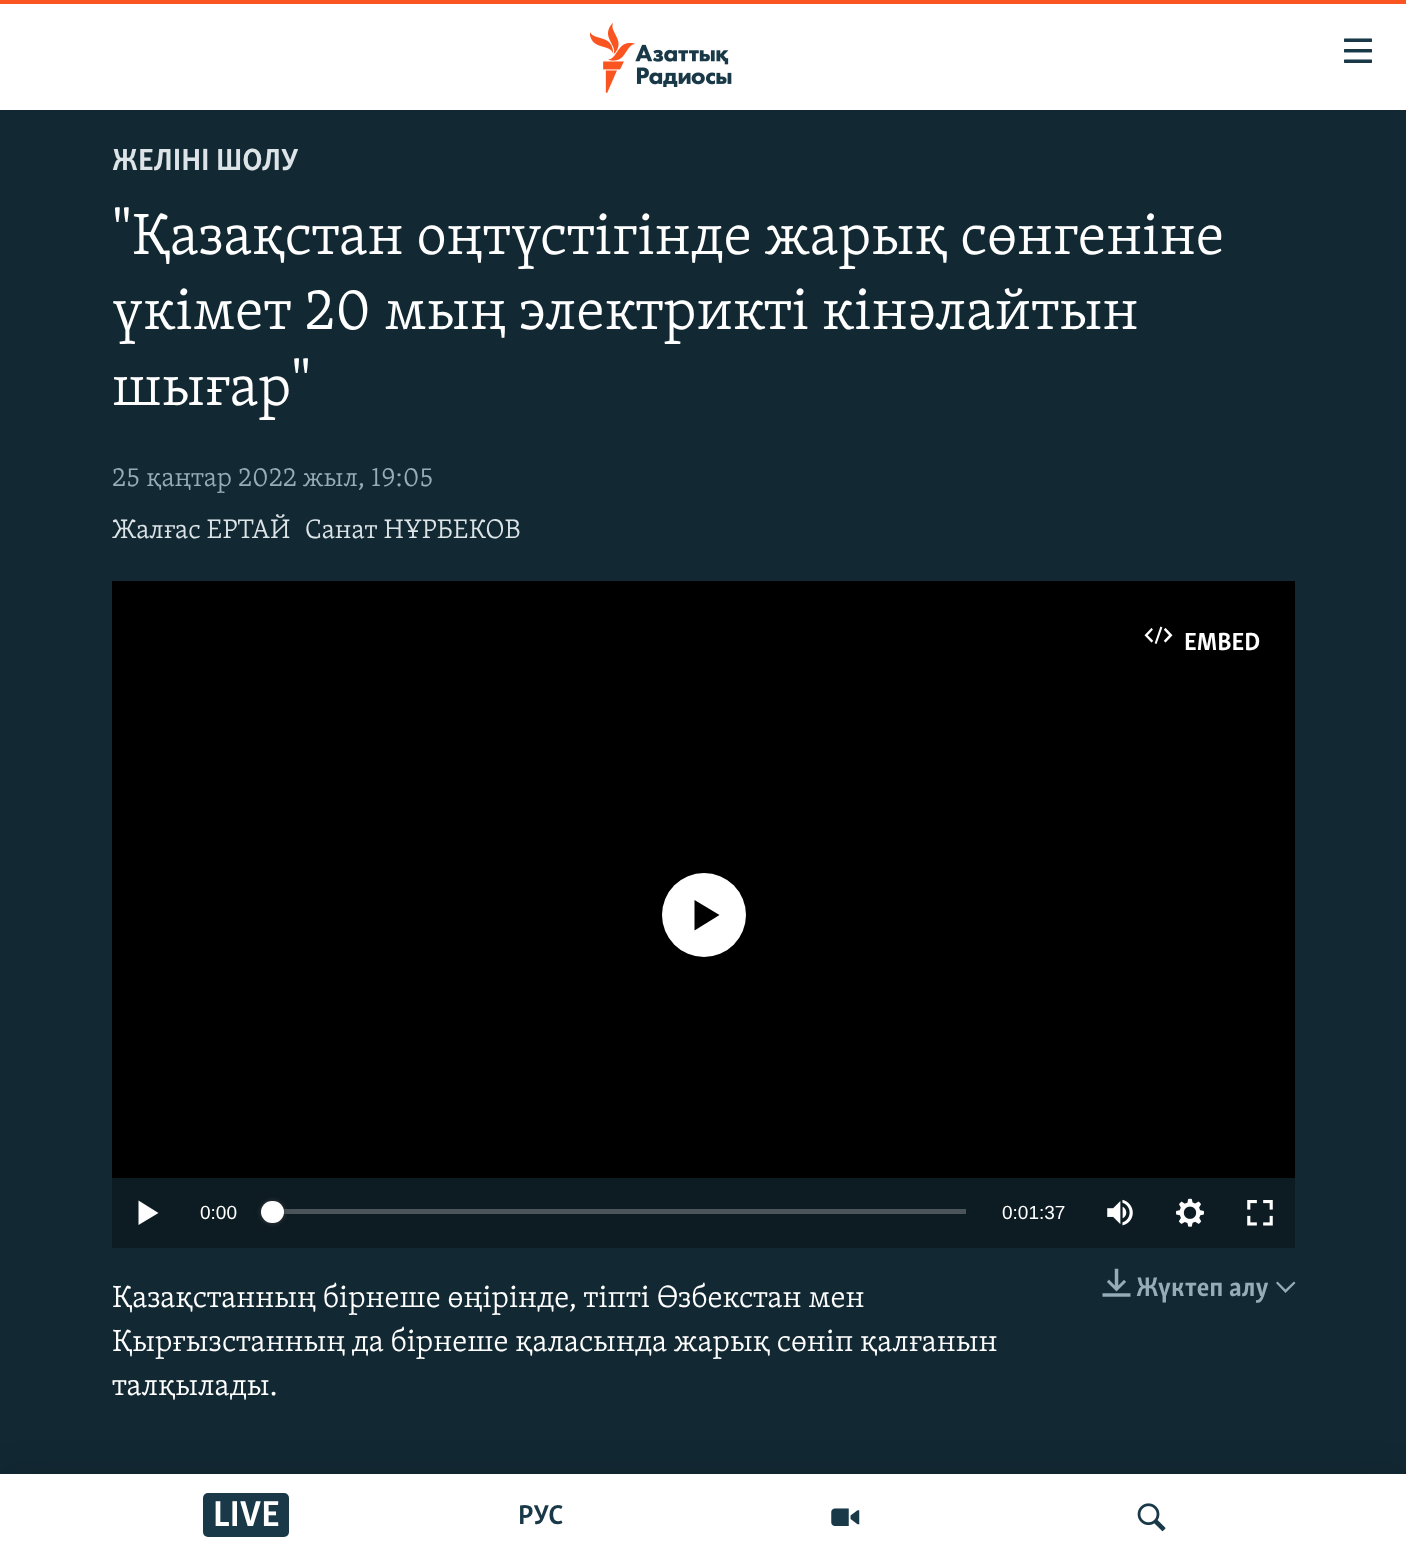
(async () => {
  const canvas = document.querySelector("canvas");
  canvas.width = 1406;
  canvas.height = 1561;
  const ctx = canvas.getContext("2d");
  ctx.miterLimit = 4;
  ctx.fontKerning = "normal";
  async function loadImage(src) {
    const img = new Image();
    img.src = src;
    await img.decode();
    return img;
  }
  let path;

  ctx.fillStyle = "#ffffff";
  ctx.fillRect(0, 0, 1406, 1561);
  ctx.fillStyle = "#122832";
  ctx.fillRect(0, 110, 1406, 1364);
  ctx.fillStyle = "#000000";
  ctx.fillRect(112, 581, 1183, 597);
  ctx.drawImage(await loadImage("img/1.png"), 1144, 626, 29, 18);
  ctx.fillStyle = "#ffffff";
  ctx.beginPath();
  ctx.arc(704, 915, 42, 0, Math.PI * 2);
  ctx.fill();
  ctx.fillStyle = "#000000";
  path = new Path2D("M694.5 930.5L719.5 915L694.5 900Z");
  ctx.fill(path);
  ctx.fillStyle = "#0d1b22";
  ctx.fillRect(112, 1178, 1183, 70);
  ctx.fillStyle = "#ffffff";
  path = new Path2D("M138.5 1225L158.5 1213L138.5 1200.5Z");
  ctx.fill(path);
  ctx.fillStyle = "#4a5459";
  ctx.fillRect(283, 1209, 683, 5);
  ctx.fillStyle = "#414144";
  ctx.filter = "blur(2.5px)";
  ctx.beginPath();
  ctx.roundRect(261, 1201, 23, 22, 11);
  ctx.fill();
  ctx.filter = "none";
  ctx.fillStyle = "#ffffff";
  ctx.beginPath();
  ctx.roundRect(261, 1201, 23, 22, 11);
  ctx.fill();
  ctx.drawImage(await loadImage("img/2.png"), 1107, 1199, 26, 27);
  ctx.drawImage(await loadImage("img/3.png"), 1176, 1198, 28, 29);
  ctx.drawImage(await loadImage("img/4.png"), 1247, 1200, 26, 26);
  ctx.drawImage(await loadImage("img/5.png"), 1102, 1268, 29, 29);
  ctx.fillStyle = "#95adb9";
  path = new Path2D("M1276 1283L1285.5 1293L1295.5 1283L1294 1281.5L1285.5 1289.5L1277.5 1281.5Z");
  ctx.fill(path);
  ctx.fillStyle = "#fa5420";
  ctx.fillRect(0, 0, 1406, 4);
  ctx.drawImage(await loadImage("img/6.png"), 590, 23, 142, 70);
  ctx.drawImage(await loadImage("img/7.png"), 1344, 38, 28, 25);
  ctx.fillStyle = "rgba(0, 0, 0, 0.1)";
  ctx.filter = "blur(17.5px)";
  ctx.beginPath();
  ctx.rect(0, 1474, 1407, 87);
  ctx.fill();
  ctx.filter = "none";
  ctx.fillStyle = "#ffffff";
  ctx.fillRect(0, 1474, 1406, 87);
  ctx.fillStyle = "#1a3948";
  ctx.beginPath();
  ctx.roundRect(203, 1493, 86, 44, 5);
  ctx.fill();
  ctx.drawImage(await loadImage("img/8.png"), 831, 1508, 29, 18);
  ctx.drawImage(await loadImage("img/9.png"), 1137, 1503, 29, 29);
  ctx.font = "bold 31.5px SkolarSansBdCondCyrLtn";
  ctx.fillStyle = "#dce4e8";
  ctx.fillText("ЖЕЛІНІ ШОЛУ", 112, 170);
  ctx.font = "300 59.8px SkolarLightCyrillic";
  ctx.fillStyle = "#ffffff";
  for (const [text, x, y] of [
    ["\"Қазақстан оңтүстігінде жарық сөнгеніне", 112, 254],
    ["үкімет 20 мың электрикті кінәлайтын", 112, 329],
    ["шығар\"", 112, 405],
  ]) {
    ctx.fillText(text, x, y);
  }
  ctx.font = "300 27.5px SkolarLightCyrillic";
  ctx.fillStyle = "#95adb9";
  ctx.fillText("25 қаңтар 2022 жыл, 19:05", 112, 486);
  ctx.fillStyle = "#dce4e8";
  ctx.fillText("Жалғас ЕРТАЙ", 112, 538);
  ctx.fillText("Санат НҰРБЕКОВ", 305, 538);
  ctx.font = "bold 25.5px SkolarSansBdCondCyrLtn";
  ctx.fillStyle = "#ffffff";
  ctx.fillText("EMBED", 1184, 650);
  ctx.font = "19px Liberation Sans";
  ctx.fillText("0:00", 200, 1219);
  ctx.fillText("0:01:37", 1002, 1219);
  ctx.font = "300 31.5px SkolarLightCyrillic";
  for (const [text, x, y] of [
    ["Қазақстанның бірнеше өңірінде, тіпті Өзбекстан мен", 112, 1307],
    ["Қырғызстанның да бірнеше қаласында жарық сөніп қалғанын", 112, 1351],
    ["талқылады.", 112, 1395],
  ]) {
    ctx.fillText(text, x, y);
  }
  ctx.font = "bold 27.5px SkolarSansBdCondCyrLtn";
  ctx.fillStyle = "#95adb9";
  ctx.fillText("Жүктеп алу", 1136, 1296);
  ctx.font = "bold 37px SkolarSansBdCondCyrLtn";
  ctx.fillStyle = "#ffffff";
  ctx.fillText("LIVE", 213, 1526);
  ctx.font = "bold 28px SkolarSansBdCondCyrLtn";
  ctx.fillStyle = "#1a3948";
  ctx.fillText("РУС", 518, 1524);
})();
